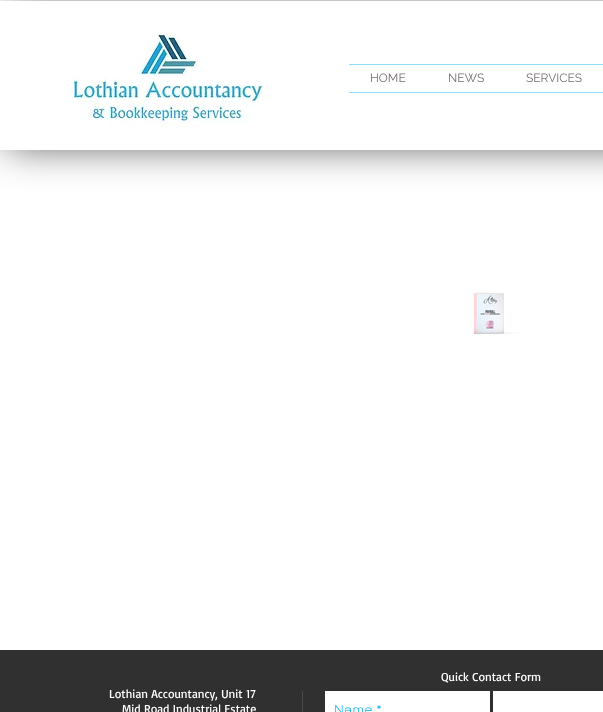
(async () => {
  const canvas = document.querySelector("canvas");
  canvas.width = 603;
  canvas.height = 712;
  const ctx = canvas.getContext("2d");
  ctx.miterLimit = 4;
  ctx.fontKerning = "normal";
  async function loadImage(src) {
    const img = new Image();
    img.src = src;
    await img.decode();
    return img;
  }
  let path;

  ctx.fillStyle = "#ffffff";
  ctx.fillRect(0, 0, 603, 712);
  ctx.save();
  path = new Path2D("M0 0H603V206H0ZM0 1H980V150H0Z");
  ctx.clip(path, "evenodd");
  ctx.fillStyle = "rgba(0, 0, 0, 0.7)";
  ctx.filter = "blur(20px)";
  ctx.beginPath();
  ctx.rect(7, 10, 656, 135);
  ctx.fill();
  ctx.filter = "none";
  ctx.restore();
  ctx.drawImage(await loadImage("img/1.png"), 74, 32, 188, 94);
  ctx.fillStyle = "#8cdcf8";
  ctx.fillRect(349, 64, 254, 1);
  ctx.fillRect(349, 92, 254, 1);
  ctx.drawImage(await loadImage("img/2.png"), 473, 292, 52, 43);
  for (const [x, y, w, h, color] of [
    [0, 650, 603, 62, "#303030"],
    [302, 691, 1, 21, "#4c4a4a"],
    [325, 691, 165, 21, "#ffffff"],
    [493, 691, 110, 21, "#ffffff"],
  ]) {
    ctx.fillStyle = color;
    ctx.fillRect(x, y, w, h);
  }
  ctx.font = "12px Raleway";
  ctx.fillStyle = "#757070";
  for (const [text, x, y] of [
    ["HOME", 370, 82],
    ["NEWS", 448, 82],
    ["SERVICES", 526, 82],
  ]) {
    ctx.fillText(text, x, y);
  }
  ctx.font = "12px Basic";
  ctx.fillStyle = "#ffffff";
  for (const [text, x, y] of [
    ["Quick Contact Form", 441, 681],
    ["Lothian Accountancy, Unit 17", 109, 698],
    ["Mid Road Industrial Estate", 122, 713],
  ]) {
    ctx.fillText(text, x, y);
  }
  ctx.font = "14px Jura";
  ctx.fillStyle = "#00aded";
  ctx.fillText("Name *", 334, 714);
})();
